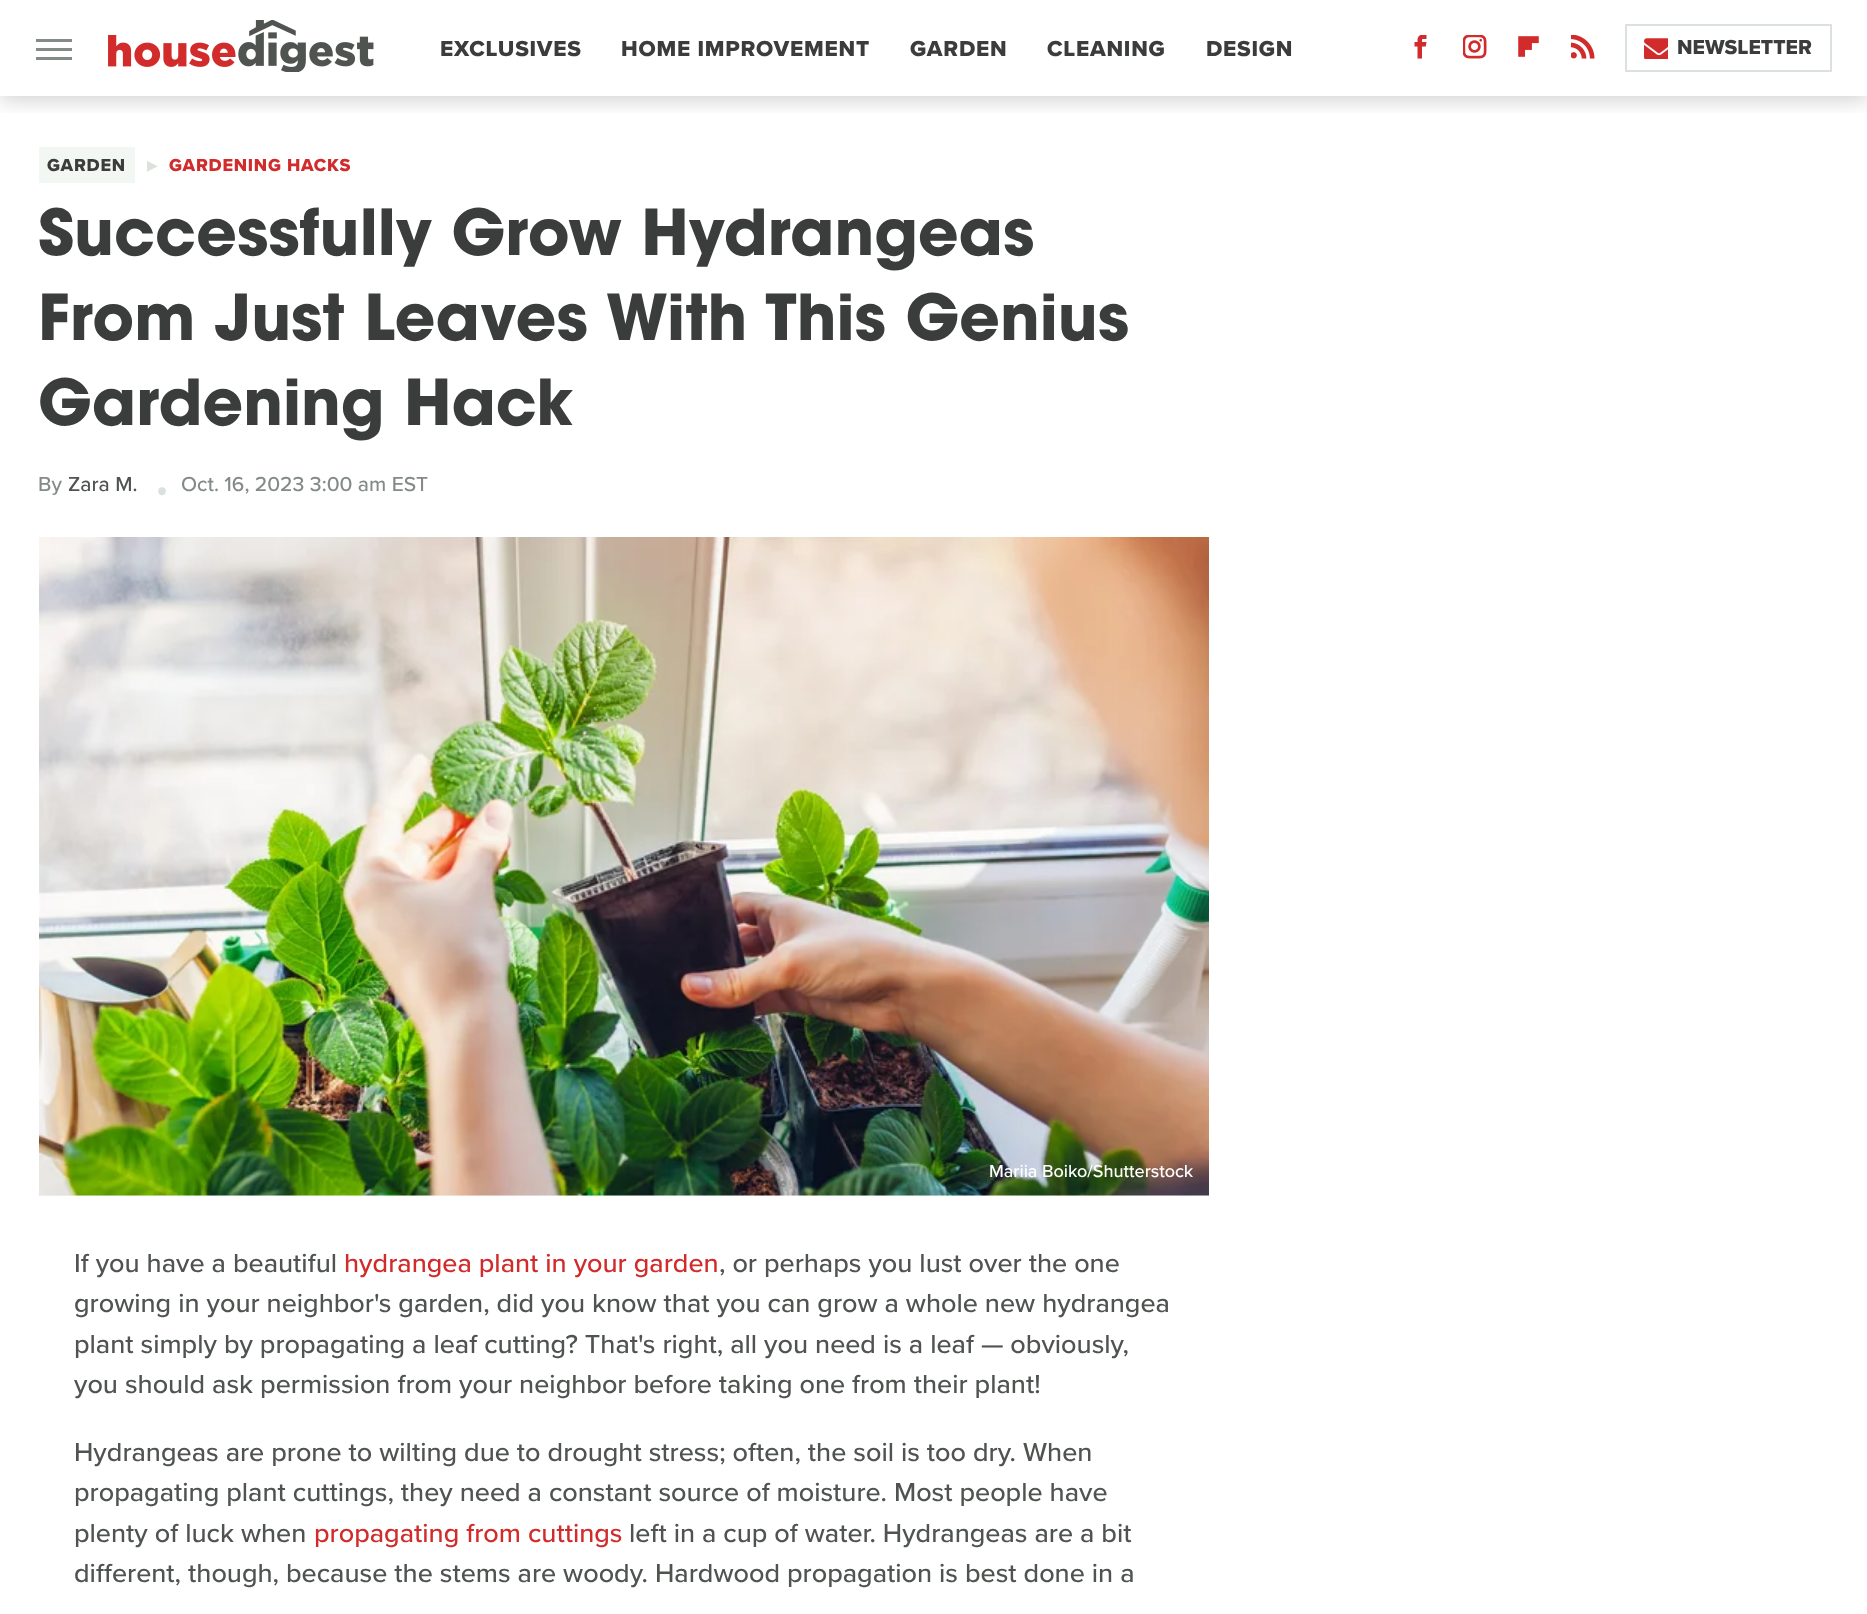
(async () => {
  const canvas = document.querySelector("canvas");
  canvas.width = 1867;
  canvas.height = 1614;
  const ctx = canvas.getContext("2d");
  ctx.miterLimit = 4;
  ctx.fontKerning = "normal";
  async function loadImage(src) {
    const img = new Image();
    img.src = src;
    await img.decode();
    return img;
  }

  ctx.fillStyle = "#ffffff";
  ctx.fillRect(0, 0, 1867, 1614);
  ctx.save();
  ctx.beginPath();
  ctx.rect(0, 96, 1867, 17);
  ctx.clip();
  ctx.fillStyle = "rgba(0, 0, 0, 0.2)";
  ctx.filter = "blur(11px)";
  ctx.beginPath();
  ctx.rect(0, 3, 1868, 96);
  ctx.fill();
  ctx.filter = "none";
  ctx.restore();
  for (const [x, y, w, h, color] of [
    [36, 39, 36, 3, "#848b86"],
    [36, 48, 36, 3, "#848b86"],
    [36, 57, 36, 3, "#848b86"],
  ]) {
    ctx.fillStyle = color;
    ctx.fillRect(x, y, w, h);
  }
  ctx.drawImage(await loadImage("img/1.png"), 108, 20, 266, 52);
  ctx.drawImage(await loadImage("img/2.png"), 1414, 35, 13, 24);
  ctx.drawImage(await loadImage("img/3.png"), 1463, 35, 24, 24);
  ctx.drawImage(await loadImage("img/4.png"), 1518, 36, 21, 21);
  ctx.drawImage(await loadImage("img/5.png"), 1571, 35, 24, 24);
  ctx.strokeStyle = "#dbe2dc";
  ctx.lineWidth = 2;
  ctx.strokeRect(1626, 25, 205, 46);
  ctx.drawImage(await loadImage("img/6.png"), 1644, 38, 24, 21);
  ctx.fillStyle = "#f3f7f4";
  ctx.fillRect(39, 147, 96, 36);
  ctx.fillRect(39, 1195, 1170, 1);
  ctx.drawImage(await loadImage("img/7.png"), 39, 537, 1170, 659);
  ctx.letterSpacing = "0.75px";
  ctx.font = "800 22.5px Proxima Nova";
  ctx.fillStyle = "#3a3d3b";
  for (const [text, x, y] of [
    ["EXCLUSIVES", 440, 56],
    ["HOME IMPROVEMENT", 621, 56],
    ["GARDEN", 910, 56],
    ["CLEANING", 1047, 56],
    ["DESIGN", 1206, 56],
  ]) {
    ctx.fillText(text, x, y);
  }
  ctx.letterSpacing = "0px";
  ctx.font = "800 21px Proxima Nova";
  ctx.fillText("NEWSLETTER", 1677, 54);
  ctx.letterSpacing = "0.75px";
  ctx.font = "800 18px Proxima Nova";
  ctx.fillText("GARDEN", 47, 171);
  ctx.letterSpacing = "0px";
  ctx.font = "14px DejaVu Sans";
  ctx.fillStyle = "#dbe2dc";
  ctx.fillText("▶︎", 147, 170);
  ctx.letterSpacing = "0.75px";
  ctx.font = "800 18px Proxima Nova";
  ctx.fillStyle = "#d22b2b";
  ctx.fillText("GARDENING HACKS", 169, 171);
  ctx.letterSpacing = "0px";
  ctx.font = "bold 63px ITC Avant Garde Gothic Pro";
  ctx.fillStyle = "#3a3d3b";
  for (const [text, x, y] of [
    ["Successfully Grow Hydrangeas", 38, 255],
    ["From Just Leaves With This Genius", 38, 340],
    ["Gardening Hack", 38, 425],
  ]) {
    ctx.fillText(text, x, y);
  }
  ctx.font = "500 21px Proxima Nova";
  ctx.fillStyle = "#848b86";
  ctx.fillText("By", 38, 491);
  ctx.fillStyle = "#505451";
  ctx.fillText("Zara M.", 68, 491);
  ctx.font = "60px Noto Sans";
  ctx.fillStyle = "#dbe2dc";
  ctx.fillText("‧", 154, 506);
  ctx.font = "500 21px Proxima Nova";
  ctx.fillStyle = "#848b86";
  ctx.fillText("Oct. 16, 2023 3:00 am EST", 181, 491);
  ctx.font = "500 18px Proxima Nova";
  ctx.fillStyle = "#ffffff";
  ctx.fillText("Mariia Boiko/Shutterstock", 989, 1177);
  ctx.font = "500 27px Proxima Nova";
  ctx.fillStyle = "#505451";
  ctx.fillText("If you have a beautiful", 74, 1272);
  ctx.fillStyle = "#d22b2b";
  ctx.fillText("hydrangea plant in your garden", 344, 1272);
  ctx.fillStyle = "#505451";
  for (const [text, x, y] of [
    [", or perhaps you lust over the one", 719, 1272],
    ["growing in your neighbor's garden, did you know that you can grow a whole new hydrangea", 74, 1312],
    ["plant simply by propagating a leaf cutting? That's right, all you need is a leaf — obviously,", 74, 1353],
    ["you should ask permission from your neighbor before taking one from their plant!", 74, 1393],
    ["Hydrangeas are prone to wilting due to drought stress; often, the soil is too dry. When", 74, 1461],
    ["propagating plant cuttings, they need a constant source of moisture. Most people have", 74, 1501],
    ["plenty of luck when", 74, 1542],
  ]) {
    ctx.fillText(text, x, y);
  }
  ctx.fillStyle = "#d22b2b";
  ctx.fillText("propagating from cuttings", 314, 1542);
  ctx.fillStyle = "#505451";
  ctx.fillText("left in a cup of water. Hydrangeas are a bit", 629, 1542);
  ctx.fillText("different, though, because the stems are woody. Hardwood propagation is best done in a", 74, 1582);
})();
